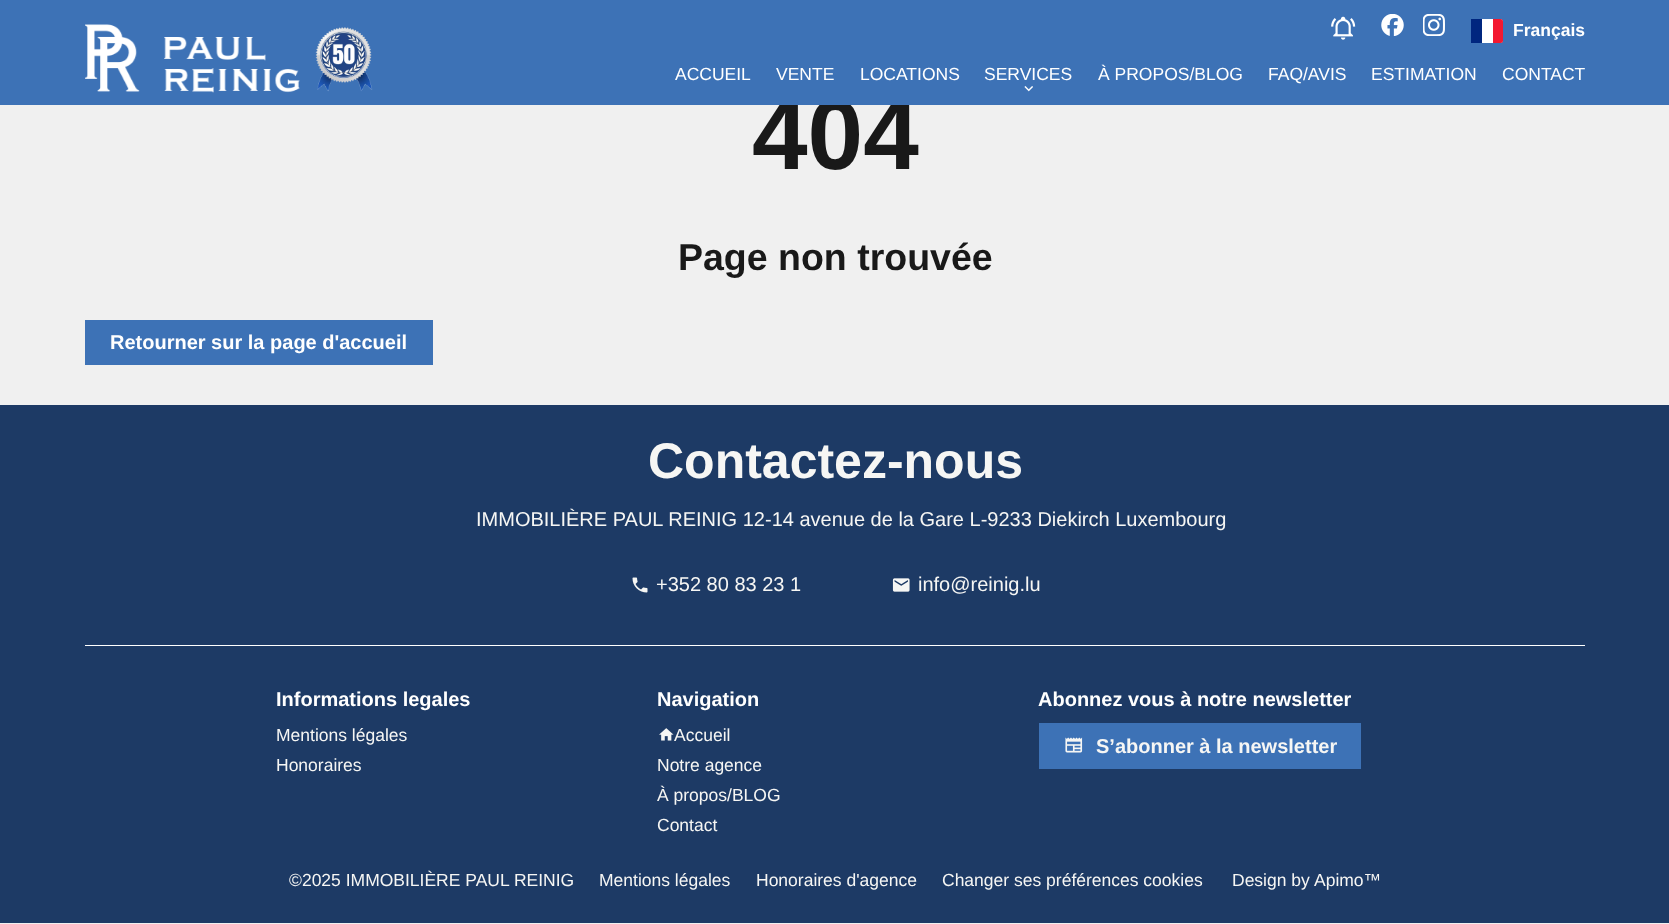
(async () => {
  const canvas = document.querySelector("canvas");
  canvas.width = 1669;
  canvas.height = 924;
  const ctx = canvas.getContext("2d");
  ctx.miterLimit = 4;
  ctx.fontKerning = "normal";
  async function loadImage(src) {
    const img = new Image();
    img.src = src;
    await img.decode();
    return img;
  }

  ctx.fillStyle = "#f0f0f0";
  ctx.fillRect(0, 0, 1669, 924);
  ctx.fillStyle = "#3d72b6";
  ctx.fillRect(85, 320, 348, 45);
  ctx.fillStyle = "#1d3a65";
  ctx.fillRect(0, 405, 1669, 518);
  ctx.drawImage(await loadImage("img/7.png"), 632, 577, 16, 16);
  ctx.drawImage(await loadImage("img/8.png"), 892, 578, 18, 14);
  ctx.fillStyle = "#ffffff";
  ctx.fillRect(85, 645, 1500, 1);
  ctx.drawImage(await loadImage("img/9.png"), 659, 728, 15, 13);
  ctx.fillStyle = "#3d72b6";
  ctx.fillRect(1039, 723, 322, 46);
  ctx.drawImage(await loadImage("img/10.png"), 1065, 737, 18, 16);
  ctx.font = "bold 100px Liberation Sans";
  ctx.fillStyle = "#191919";
  ctx.fillText("404", 752, 169);
  ctx.fillStyle = "#3d72b6";
  ctx.fillRect(0, 0, 1669, 105);
  ctx.font = "17.5px Liberation Sans";
  ctx.fillStyle = "#ffffff";
  for (const [text, x, y] of [
    ["CONTACT", 1502, 80],
    ["ESTIMATION", 1371, 80],
    ["FAQ/AVIS", 1268, 80],
    ["À PROPOS/BLOG", 1098, 80],
  ]) {
    ctx.fillText(text, x, y);
  }
  ctx.drawImage(await loadImage("img/6.png"), 1024, 86, 9, 6);
  for (const [text, x, y] of [
    ["SERVICES", 984, 80],
    ["LOCATIONS", 860, 80],
    ["VENTE", 776, 80],
    ["ACCUEIL", 675, 80],
  ]) {
    ctx.fillText(text, x, y);
  }
  ctx.save();
  ctx.beginPath();
  ctx.roundRect(1470, 19, 33, 24, 2.5);
  ctx.clip();
  ctx.beginPath();
  ctx.roundRect(1471, 19, 32, 24, [0, 2.5, 2.5, 0]);
  ctx.fill();
  ctx.restore();
  ctx.fillStyle = "#f31830";
  ctx.beginPath();
  ctx.roundRect(1493, 19, 10, 24, [0, 2.5, 2.5, 0]);
  ctx.fill();
  ctx.fillStyle = "#00267f";
  ctx.fillRect(1471, 19, 11, 24);
  ctx.font = "bold 17.5px Liberation Sans";
  ctx.fillStyle = "#ffffff";
  ctx.fillText("Français", 1513, 36);
  ctx.drawImage(await loadImage("img/5.png"), 1423, 14, 22, 22);
  ctx.drawImage(await loadImage("img/4.png"), 1381, 14, 23, 22);
  ctx.drawImage(await loadImage("img/3.png"), 1331, 16, 25, 24);
  ctx.drawImage(await loadImage("img/2.png"), 315, 27, 58, 65);
  ctx.drawImage(await loadImage("img/1.png"), 85, 24, 215, 69);
  ctx.font = "bold 37.5px Liberation Sans";
  ctx.fillStyle = "#191919";
  ctx.fillText("Page non trouvée", 678, 270);
  ctx.font = "bold 20px Liberation Sans";
  ctx.fillStyle = "#ffffff";
  ctx.fillText("Retourner sur la page d'accueil", 110, 349);
  ctx.font = "bold 50px Liberation Sans";
  ctx.fillStyle = "#f6f6f4";
  ctx.fillText("Contactez-nous", 648, 478);
  ctx.font = "20px Liberation Sans";
  for (const [text, x, y] of [
    ["IMMOBILIÈRE PAUL REINIG 12-14 avenue de la Gare L-9233 Diekirch Luxembourg", 476, 526],
    ["+352 80 83 23 1", 656, 591],
    ["info@reinig.lu", 918, 591],
  ]) {
    ctx.fillText(text, x, y);
  }
  ctx.font = "bold 20px Liberation Sans";
  ctx.fillStyle = "#ffffff";
  ctx.fillText("Informations legales", 276, 706);
  ctx.font = "17.5px Liberation Sans";
  ctx.fillStyle = "#f6f6f4";
  ctx.fillText("Mentions légales", 276, 741);
  ctx.fillText("Honoraires", 276, 771);
  ctx.font = "bold 20px Liberation Sans";
  ctx.fillStyle = "#ffffff";
  ctx.fillText("Navigation", 657, 706);
  ctx.font = "17.5px Liberation Sans";
  ctx.fillStyle = "#f6f6f4";
  for (const [text, x, y] of [
    ["Accueil", 674, 741],
    ["Notre agence", 657, 771],
    ["À propos/BLOG", 657, 801],
    ["Contact", 657, 831],
  ]) {
    ctx.fillText(text, x, y);
  }
  ctx.font = "bold 20px Liberation Sans";
  ctx.fillStyle = "#ffffff";
  ctx.fillText("Abonnez vous à notre newsletter", 1038, 706);
  ctx.fillStyle = "#f6f6f4";
  ctx.fillText("S’abonner à la newsletter", 1096, 753);
  ctx.font = "17.5px Liberation Sans";
  for (const [text, x, y] of [
    ["©2025 IMMOBILIÈRE PAUL REINIG", 289, 886],
    ["Mentions légales", 599, 886],
    ["Honoraires d'agence", 756, 886],
    ["Changer ses préférences cookies", 942, 886],
    ["Design by", 1232, 886],
    ["Apimo™", 1314, 886],
  ]) {
    ctx.fillText(text, x, y);
  }
})();
